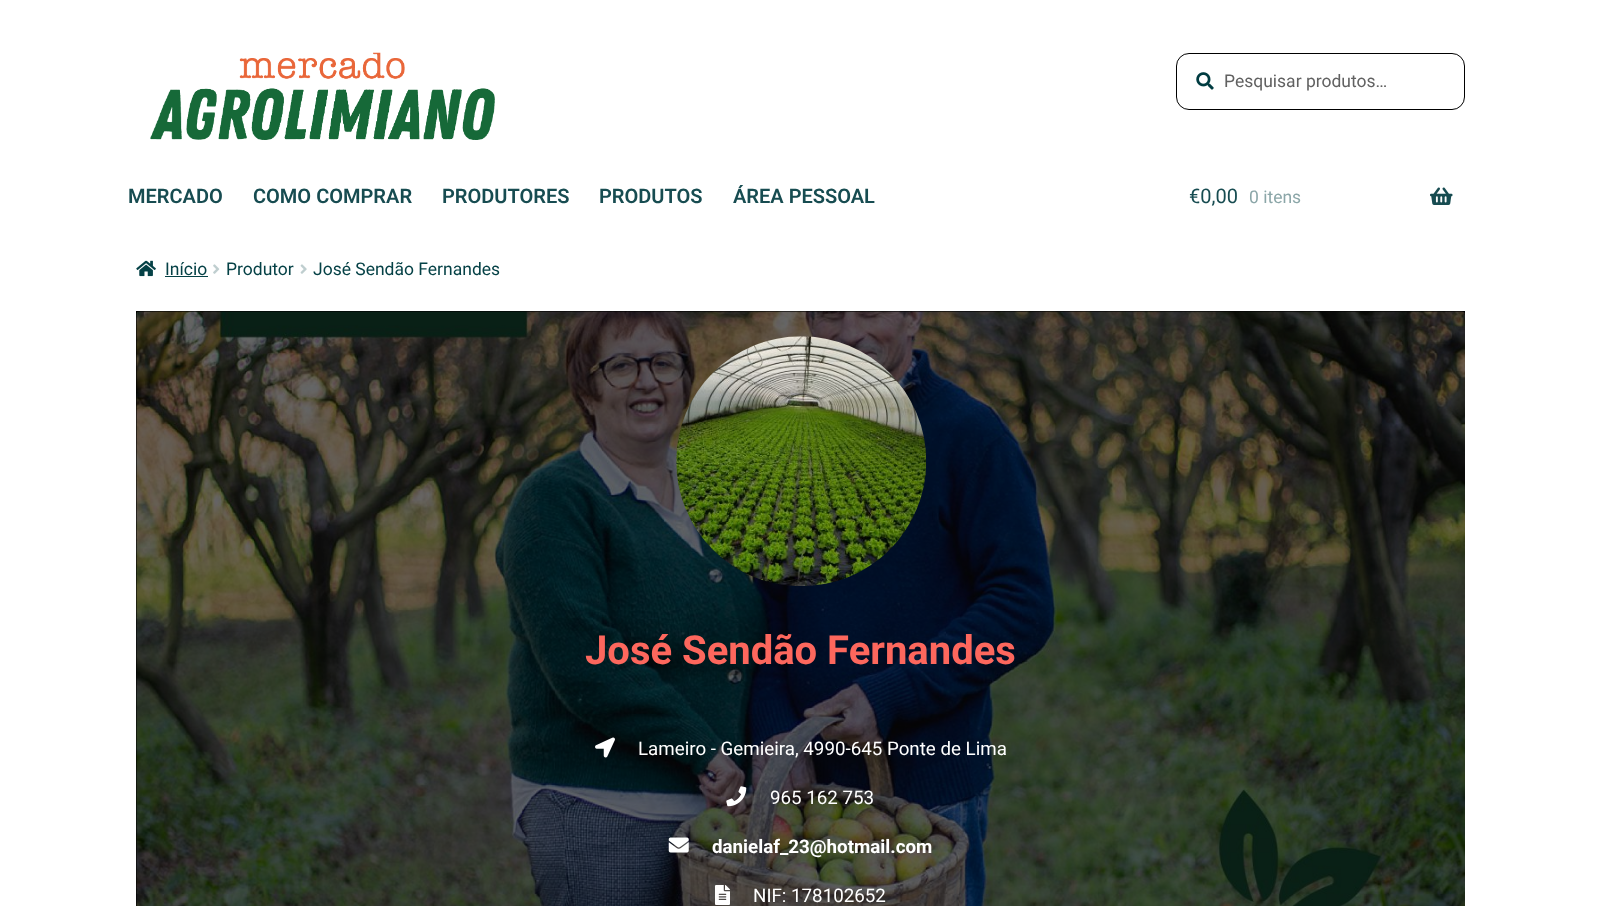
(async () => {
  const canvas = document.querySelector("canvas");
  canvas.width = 1601;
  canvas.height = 906;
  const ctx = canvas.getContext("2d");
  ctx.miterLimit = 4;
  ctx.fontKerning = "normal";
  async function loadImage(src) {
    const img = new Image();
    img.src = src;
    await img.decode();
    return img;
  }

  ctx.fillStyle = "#ffffff";
  ctx.fillRect(0, 0, 1601, 906);
  ctx.drawImage(await loadImage("img/1.png"), 150, 52, 345, 88);
  ctx.beginPath();
  ctx.roundRect(1176.5, 53.5, 288, 56, 12.5);
  ctx.strokeStyle = "#000000";
  ctx.stroke();
  ctx.drawImage(await loadImage("img/2.png"), 1196, 72, 18, 18);
  ctx.drawImage(await loadImage("img/3.png"), 1430, 187, 23, 18);
  ctx.drawImage(await loadImage("img/4.png"), 136, 260, 20, 17);
  ctx.fillStyle = "#054146";
  ctx.fillRect(165, 276, 43, 1);
  ctx.drawImage(await loadImage("img/5.png"), 213, 264, 7, 10);
  ctx.drawImage(await loadImage("img/6.png"), 300, 264, 7, 10);
  ctx.fillStyle = "#000000";
  ctx.fillRect(136, 311, 1329, 595);
  ctx.drawImage(await loadImage("img/7.png"), 136, 311, 1329, 595);
  ctx.drawImage(await loadImage("img/8.png"), 676, 336, 250, 250);
  ctx.drawImage(await loadImage("img/9.png"), 595, 737, 20, 21);
  ctx.drawImage(await loadImage("img/10.png"), 726, 786, 21, 21);
  ctx.drawImage(await loadImage("img/11.png"), 668, 837, 21, 16);
  ctx.drawImage(await loadImage("img/12.png"), 715, 885, 15, 20);
  ctx.font = "17.5px Roboto";
  ctx.fillStyle = "#616161";
  ctx.fillText("Pesquisar produtos…", 1224, 87);
  ctx.font = "600 20px Roboto";
  ctx.fillStyle = "#174c51";
  for (const [text, x, y] of [
    ["MERCADO", 128, 203],
    ["COMO COMPRAR", 253, 203],
    ["PRODUTORES", 442, 203],
    ["PRODUTOS", 599, 203],
    ["ÁREA PESSOAL", 733, 203],
  ]) {
    ctx.fillText(text, x, y);
  }
  ctx.font = "20px Roboto";
  ctx.fillText("€0,00", 1189, 203);
  ctx.font = "17.5px Roboto";
  ctx.fillStyle = "#8ba6a8";
  ctx.fillText("0 itens", 1249, 203);
  ctx.fillStyle = "#054146";
  for (const [text, x, y] of [
    ["Início", 165, 275],
    ["Produtor", 226, 275],
    ["José Sendão Fernandes", 313, 275],
  ]) {
    ctx.fillText(text, x, y);
  }
  ctx.font = "bold 40px Roboto";
  ctx.fillStyle = "#fd675d";
  ctx.fillText("José Sendão Fernandes", 585, 664);
  ctx.font = "18.75px Roboto";
  ctx.fillStyle = "#ffffff";
  ctx.fillText("Lameiro - Gemieira, 4990-645 Ponte de Lima", 638, 755);
  ctx.fillText("965 162 753", 770, 804);
  ctx.font = "bold 18.75px Roboto";
  ctx.fillText("danielaf_23@hotmail.com", 712, 853);
  ctx.font = "18.75px Roboto";
  ctx.fillText("NIF: 178102652", 753, 902);
})();
